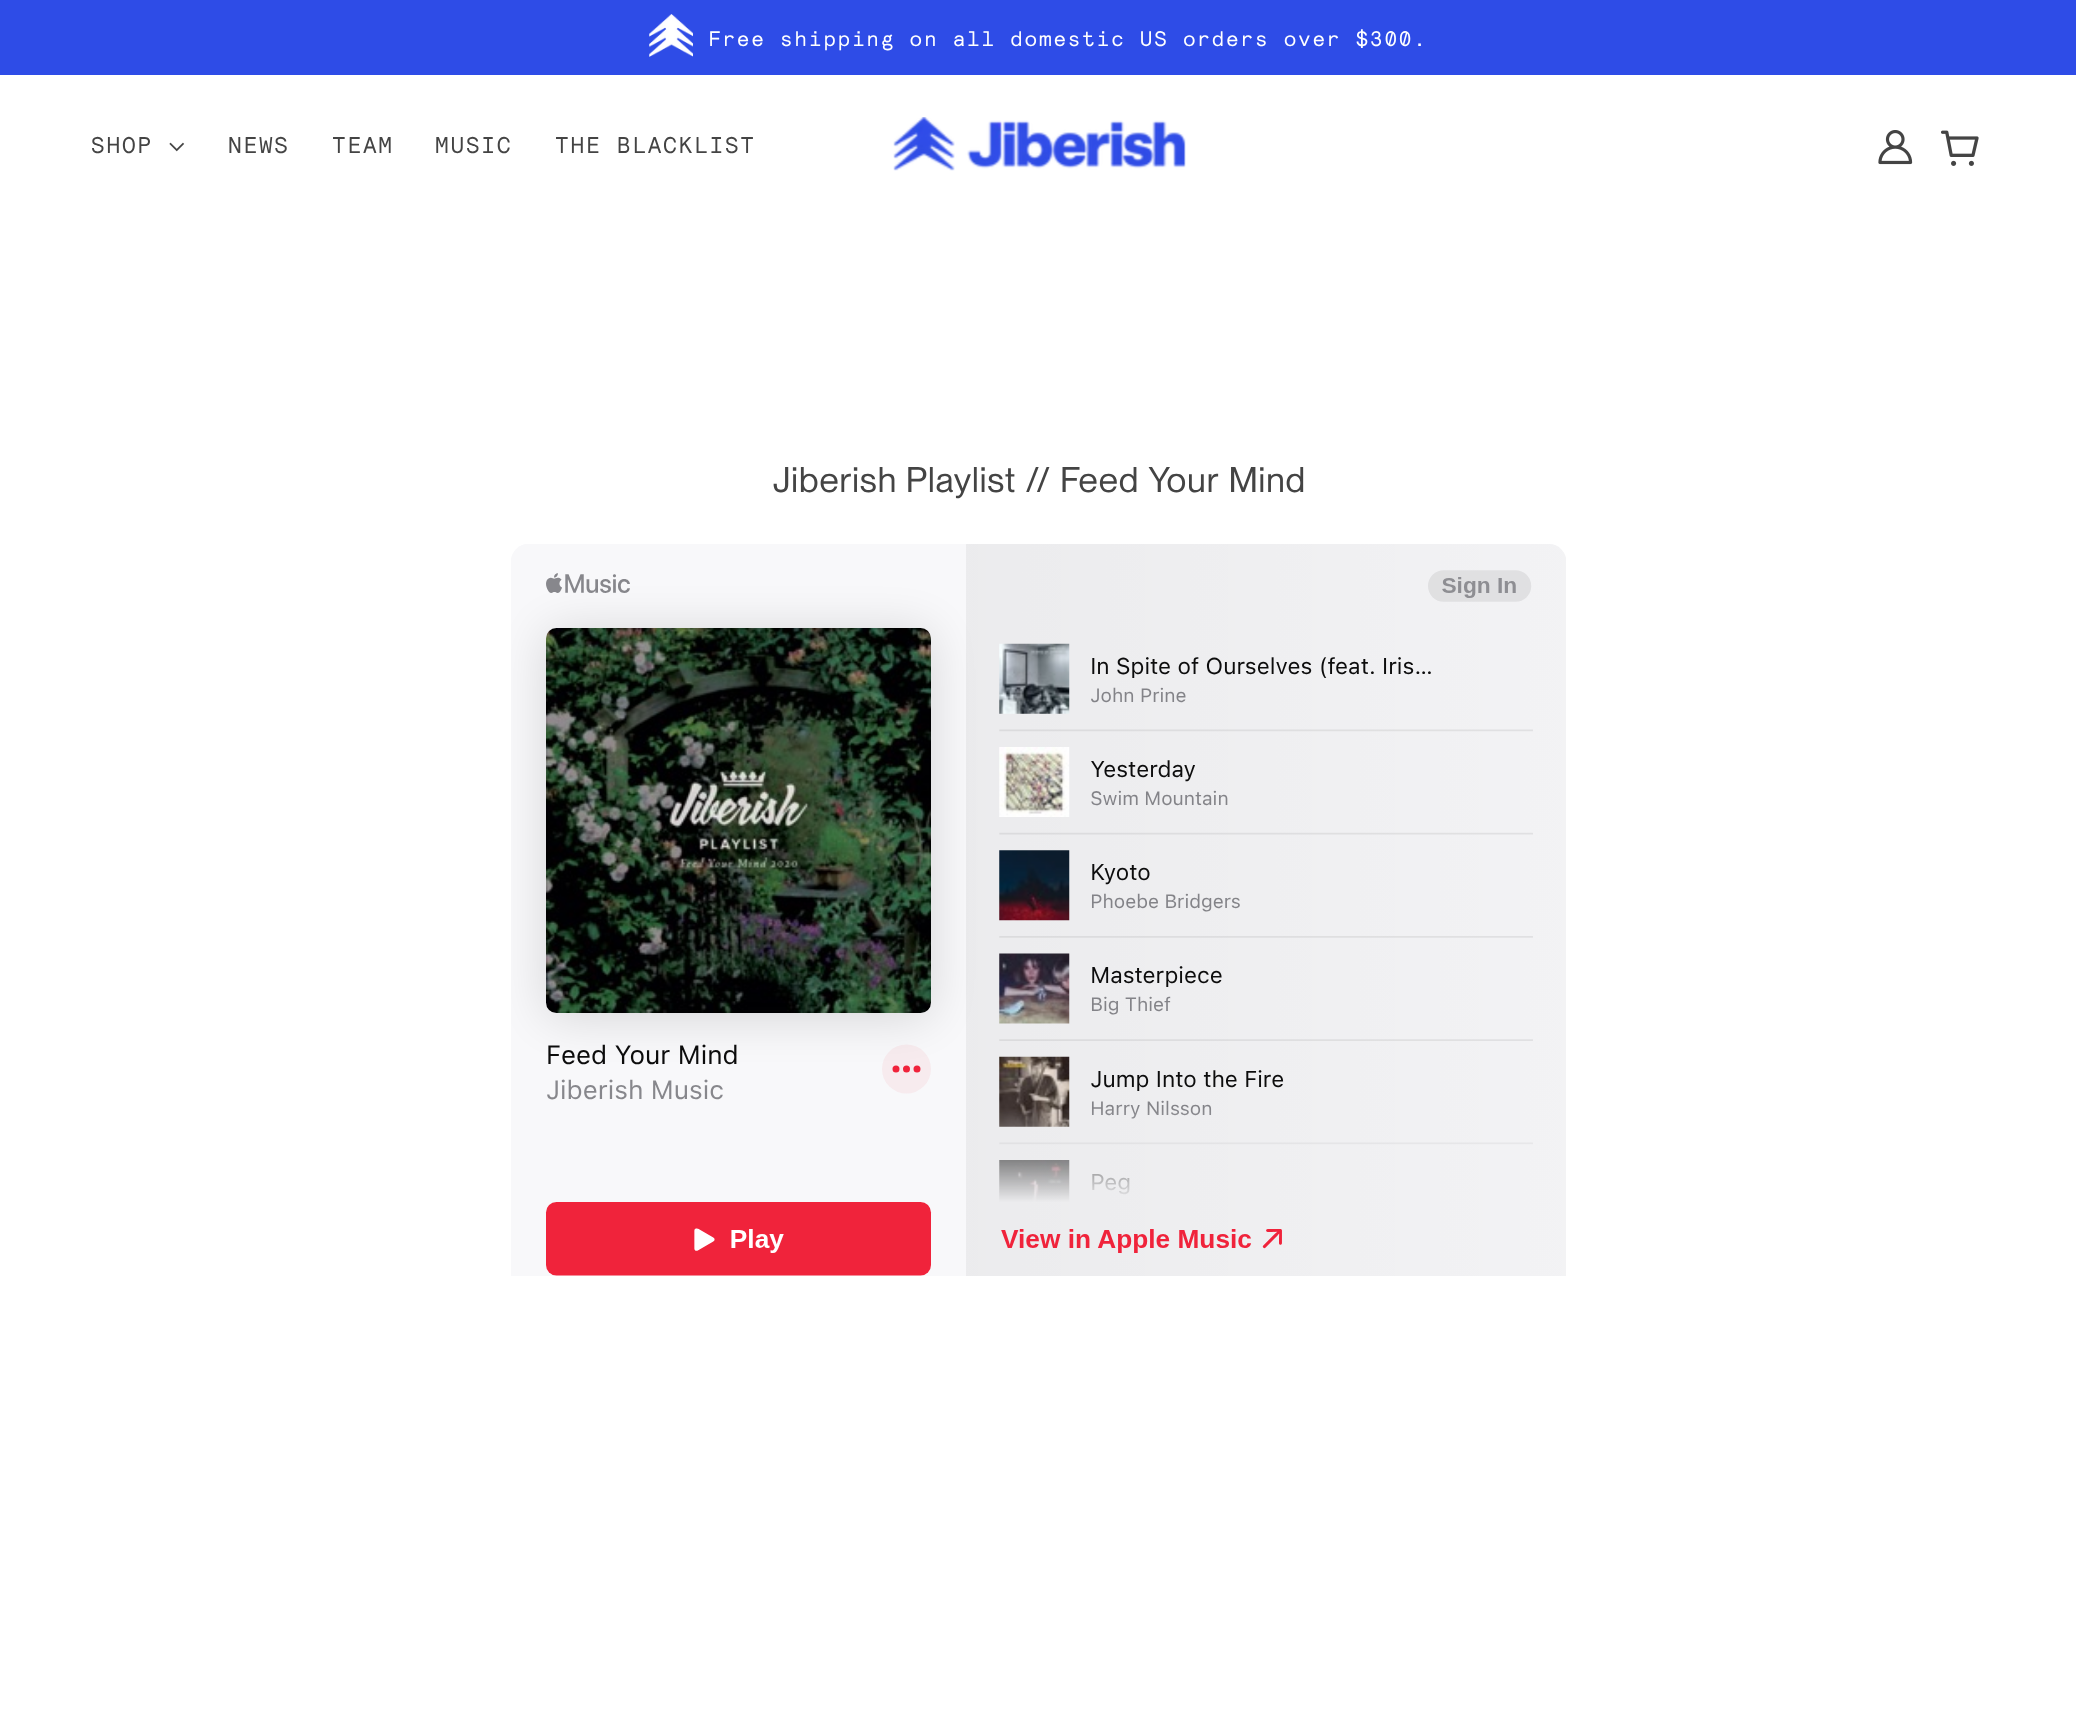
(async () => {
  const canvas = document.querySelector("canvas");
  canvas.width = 2076;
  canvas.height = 1735;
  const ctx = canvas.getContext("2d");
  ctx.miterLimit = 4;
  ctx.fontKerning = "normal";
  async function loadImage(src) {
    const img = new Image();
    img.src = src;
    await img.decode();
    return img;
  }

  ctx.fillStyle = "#ffffff";
  ctx.fillRect(0, 0, 2076, 1735);
  ctx.fillStyle = "#2e4ce7";
  ctx.fillRect(0, 0, 2076, 75);
  ctx.drawImage(await loadImage("img/1.png"), 649, 14, 44, 43);
  ctx.drawImage(await loadImage("img/2.png"), 169, 142, 16, 10);
  ctx.drawImage(await loadImage("img/3.png"), 893, 117, 293, 54);
  ctx.drawImage(await loadImage("img/4.png"), 1878, 130, 35, 35);
  ctx.drawImage(await loadImage("img/5.png"), 1941, 130, 38, 36);
  ctx.drawImage(await loadImage("img/6.png"), 511, 544, 1055, 732);
  ctx.letterSpacing = "1.75px";
  ctx.font = "21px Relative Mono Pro";
  ctx.fillStyle = "#ffffff";
  ctx.fillText("Free shipping on all domestic US orders over $300.", 708, 46);
  ctx.font = "22.75px Relative Mono Pro";
  ctx.fillStyle = "#444444";
  for (const [text, x, y] of [
    ["SHOP", 91, 153],
    ["NEWS", 228, 153],
    ["TEAM", 332, 153],
    ["MUSIC", 435, 153],
    ["THE BLACKLIST", 555, 153],
  ]) {
    ctx.fillText(text, x, y);
  }
  ctx.letterSpacing = "0.9px";
  ctx.font = "35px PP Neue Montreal";
  ctx.fillText("Jiberish Playlist // Feed Your Mind", 773, 492);
})();
